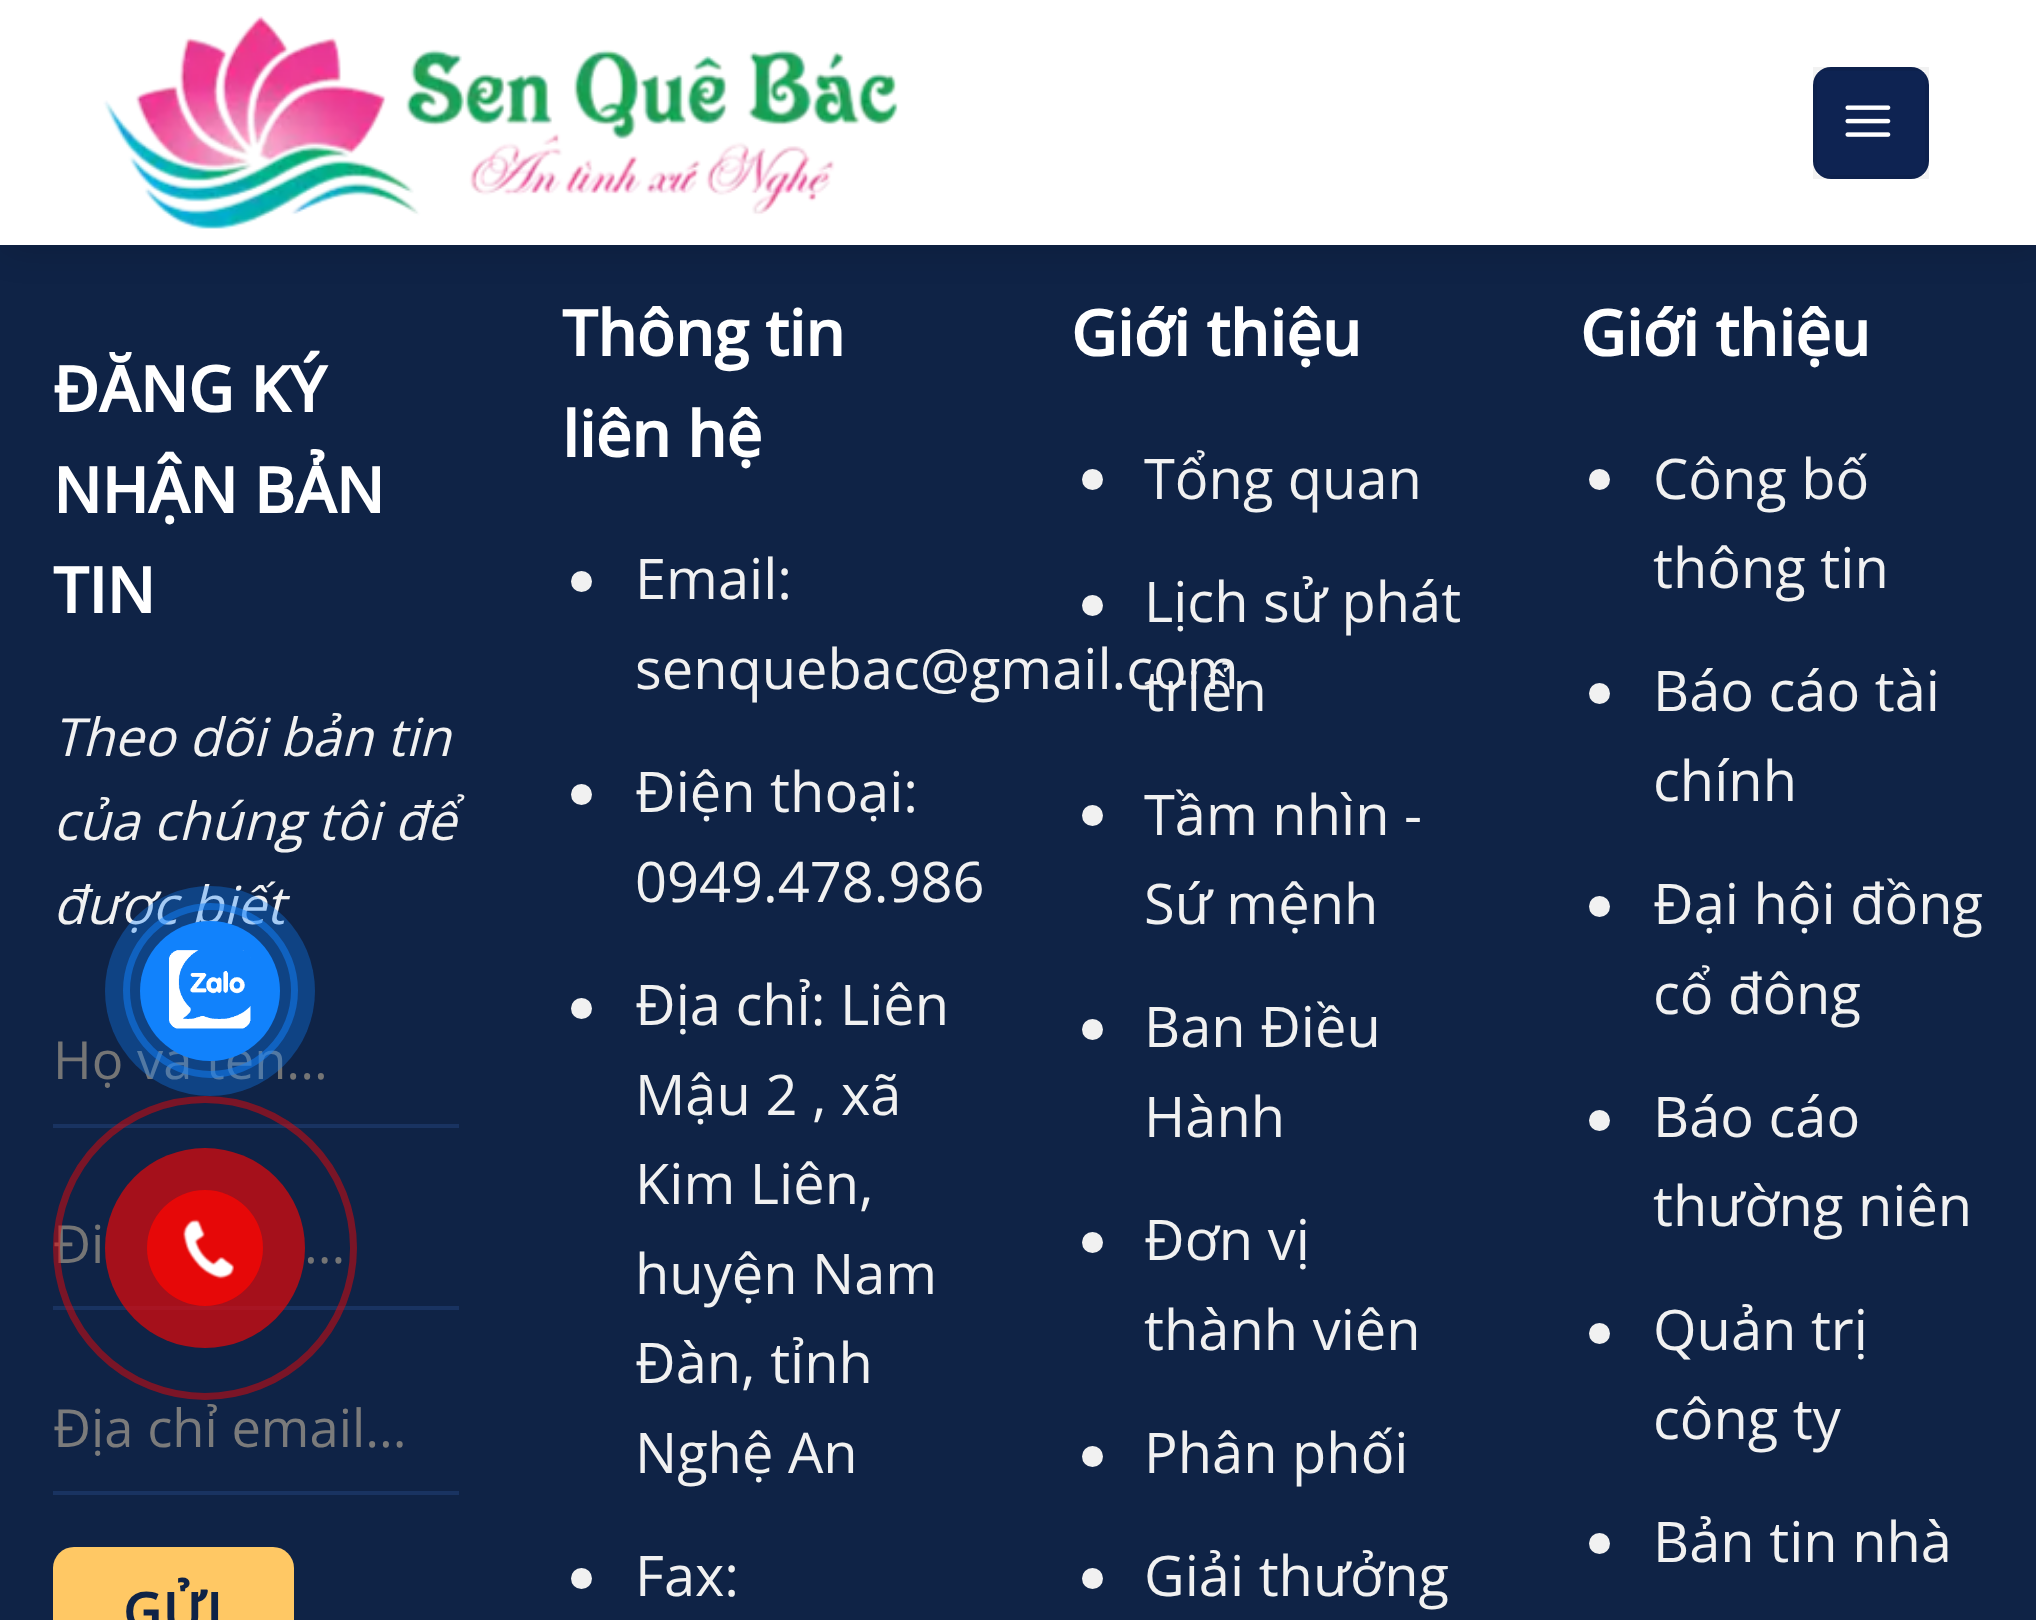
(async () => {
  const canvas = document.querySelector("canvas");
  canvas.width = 2036;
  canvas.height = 1620;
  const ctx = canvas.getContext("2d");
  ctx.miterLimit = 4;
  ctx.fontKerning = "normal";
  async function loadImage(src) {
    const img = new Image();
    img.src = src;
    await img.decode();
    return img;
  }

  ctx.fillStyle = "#0f2346";
  ctx.fillRect(0, 0, 2036, 1620);
  ctx.fillStyle = "rgba(0, 0, 0, 0.15)";
  ctx.filter = "blur(17.5px)";
  ctx.beginPath();
  ctx.rect(4, 4, 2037, 245);
  ctx.fill();
  ctx.filter = "none";
  ctx.fillStyle = "#ffffff";
  ctx.fillRect(0, 0, 2036, 245);
  ctx.drawImage(await loadImage("img/1.png"), 103, 16, 795, 213);
  ctx.fillStyle = "#0e2352";
  ctx.beginPath();
  ctx.roundRect(1813, 67, 116, 112, 18);
  ctx.fill();
  ctx.strokeStyle = "rgba(0, 0, 0, 0.05)";
  ctx.lineWidth = 4;
  ctx.strokeRect(1815, 69, 112, 108);
  ctx.drawImage(await loadImage("img/2.png"), 1845, 105, 46, 32);
  for (const [x, y, w, h, color] of [
    [53, 1124, 406, 4, "#193361"],
    [53, 1306, 406, 4, "#193361"],
    [53, 1491, 406, 4, "#193361"],
  ]) {
    ctx.fillStyle = color;
    ctx.fillRect(x, y, w, h);
  }
  ctx.fillStyle = "#ffc864";
  ctx.beginPath();
  ctx.roundRect(53, 1547, 241, 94, 21);
  ctx.fill();
  ctx.fillStyle = "#f1f1f1";
  ctx.beginPath();
  ctx.arc(581.5, 581.5, 10.5, 0, Math.PI * 2);
  ctx.fill();
  ctx.beginPath();
  ctx.arc(581.5, 794.5, 10.5, 0, Math.PI * 2);
  ctx.fill();
  ctx.beginPath();
  ctx.arc(581.5, 1008.5, 10.5, 0, Math.PI * 2);
  ctx.fill();
  ctx.beginPath();
  ctx.arc(581.5, 1578.5, 10.5, 0, Math.PI * 2);
  ctx.fill();
  ctx.beginPath();
  ctx.arc(1092.5, 479.5, 10.5, 0, Math.PI * 2);
  ctx.fill();
  ctx.beginPath();
  ctx.arc(1092.5, 605.5, 10.5, 0, Math.PI * 2);
  ctx.fill();
  ctx.beginPath();
  ctx.arc(1092.5, 815.5, 10.5, 0, Math.PI * 2);
  ctx.fill();
  ctx.beginPath();
  ctx.arc(1092.5, 1029.5, 10.5, 0, Math.PI * 2);
  ctx.fill();
  ctx.beginPath();
  ctx.arc(1092.5, 1242.5, 10.5, 0, Math.PI * 2);
  ctx.fill();
  ctx.beginPath();
  ctx.arc(1092.5, 1456.5, 10.5, 0, Math.PI * 2);
  ctx.fill();
  ctx.beginPath();
  ctx.arc(1092.5, 1578.5, 10.5, 0, Math.PI * 2);
  ctx.fill();
  ctx.beginPath();
  ctx.arc(1599.5, 479.5, 10.5, 0, Math.PI * 2);
  ctx.fill();
  ctx.beginPath();
  ctx.arc(1599.5, 693.5, 10.5, 0, Math.PI * 2);
  ctx.fill();
  ctx.beginPath();
  ctx.arc(1599.5, 906.5, 10.5, 0, Math.PI * 2);
  ctx.fill();
  ctx.beginPath();
  ctx.arc(1599.5, 1120.5, 10.5, 0, Math.PI * 2);
  ctx.fill();
  ctx.beginPath();
  ctx.arc(1599.5, 1333.5, 10.5, 0, Math.PI * 2);
  ctx.fill();
  ctx.beginPath();
  ctx.arc(1599.5, 1543.5, 10.5, 0, Math.PI * 2);
  ctx.fill();
  ctx.font = "bold 63px Open Sans";
  ctx.fillStyle = "#ffffff";
  for (const [text, x, y] of [
    ["ĐĂNG KÝ", 53, 412],
    ["NHẬN BẢN", 53, 513],
    ["TIN", 53, 613],
  ]) {
    ctx.fillText(text, x, y);
  }
  ctx.font = "italic 52.5px Open Sans";
  ctx.fillStyle = "#f1f1f1";
  for (const [text, x, y] of [
    ["Theo dõi bản tin", 53, 756],
    ["của chúng tôi để", 53, 840],
    ["được biết", 53, 924],
  ]) {
    ctx.fillText(text, x, y);
  }
  ctx.font = "52.5px Open Sans";
  ctx.fillStyle = "#757575";
  for (const [text, x, y] of [
    ["Họ và tên...", 53, 1079],
    ["Đi", 53, 1263],
    ["...", 304, 1263],
  ]) {
    ctx.fillText(text, x, y);
  }
  ctx.fillStyle = "#7b7b7b";
  ctx.fillText("Địa chỉ email...", 53, 1447);
  ctx.letterSpacing = "1.5px";
  ctx.font = "bold 52.5px Open Sans";
  ctx.fillStyle = "#0f2346";
  ctx.fillText("GỬI", 123, 1631);
  ctx.letterSpacing = "0px";
  ctx.font = "bold 63px Open Sans";
  ctx.fillStyle = "#ffffff";
  ctx.fillText("Thông tin", 562, 356);
  ctx.fillText("liên hệ", 562, 457);
  ctx.font = "56px Open Sans";
  ctx.fillStyle = "#f1f1f1";
  for (const [text, x, y] of [
    ["Email:", 635, 599],
    ["senquebac@gmail.com", 635, 689],
    ["Điện thoại:", 635, 812],
    ["0949.478.986", 635, 902],
    ["Địa chỉ: Liên", 635, 1025],
    ["Mậu 2 , xã", 635, 1115],
    ["Kim Liên,", 635, 1204],
    ["huyện Nam", 635, 1294],
    ["Đàn, tỉnh", 635, 1383],
    ["Nghệ An", 635, 1473],
    ["Fax:", 635, 1596],
  ]) {
    ctx.fillText(text, x, y);
  }
  ctx.font = "bold 63px Open Sans";
  ctx.fillStyle = "#ffffff";
  ctx.fillText("Giới thiệu", 1071, 356);
  ctx.font = "56px Open Sans";
  ctx.fillStyle = "#f1f1f1";
  for (const [text, x, y] of [
    ["Tổng quan", 1144, 499],
    ["Lịch sử phát", 1144, 622],
    ["triển", 1144, 711],
    ["Tầm nhìn -", 1144, 835],
    ["Sứ mệnh", 1144, 924],
    ["Ban Điều", 1144, 1047],
    ["Hành", 1144, 1137],
    ["Đơn vị", 1144, 1260],
    ["thành viên", 1144, 1350],
    ["Phân phối", 1144, 1473],
    ["Giải thưởng", 1144, 1596],
  ]) {
    ctx.fillText(text, x, y);
  }
  ctx.font = "bold 63px Open Sans";
  ctx.fillStyle = "#ffffff";
  ctx.fillText("Giới thiệu", 1580, 356);
  ctx.font = "56px Open Sans";
  ctx.fillStyle = "#f1f1f1";
  for (const [text, x, y] of [
    ["Công bố", 1653, 499],
    ["thông tin", 1653, 588],
    ["Báo cáo tài", 1653, 711],
    ["chính", 1653, 801],
    ["Đại hội đồng", 1653, 924],
    ["cổ đông", 1653, 1014],
    ["Báo cáo", 1653, 1137],
    ["thường niên", 1653, 1226],
    ["Quản trị", 1653, 1350],
    ["công ty", 1653, 1439],
    ["Bản tin nhà", 1653, 1562],
  ]) {
    ctx.fillText(text, x, y);
  }
  ctx.beginPath();
  ctx.arc(210.5, 990.5, 84, 0, Math.PI * 2);
  ctx.strokeStyle = "rgba(17, 130, 252, 0.5)";
  ctx.lineWidth = 7;
  ctx.stroke();
  ctx.fillStyle = "rgba(17, 130, 252, 0.34)";
  ctx.beginPath();
  ctx.arc(210, 991, 105, 0, Math.PI * 2);
  ctx.fill();
  ctx.fillStyle = "#1182fc";
  ctx.beginPath();
  ctx.arc(210, 991, 70, 0, Math.PI * 2);
  ctx.fill();
  ctx.drawImage(await loadImage("img/3.png"), 169, 950, 82, 79);
  ctx.beginPath();
  ctx.arc(205, 1248, 148.5, 0, Math.PI * 2);
  ctx.strokeStyle = "rgba(230, 8, 8, 0.5)";
  ctx.stroke();
  ctx.fillStyle = "rgba(230, 8, 8, 0.7)";
  ctx.beginPath();
  ctx.arc(205, 1248, 100, 0, Math.PI * 2);
  ctx.fill();
  ctx.fillStyle = "#e60808";
  ctx.beginPath();
  ctx.arc(205, 1248, 58, 0, Math.PI * 2);
  ctx.fill();
  ctx.drawImage(await loadImage("img/4.png"), 183, 1219, 51, 60);
})();
